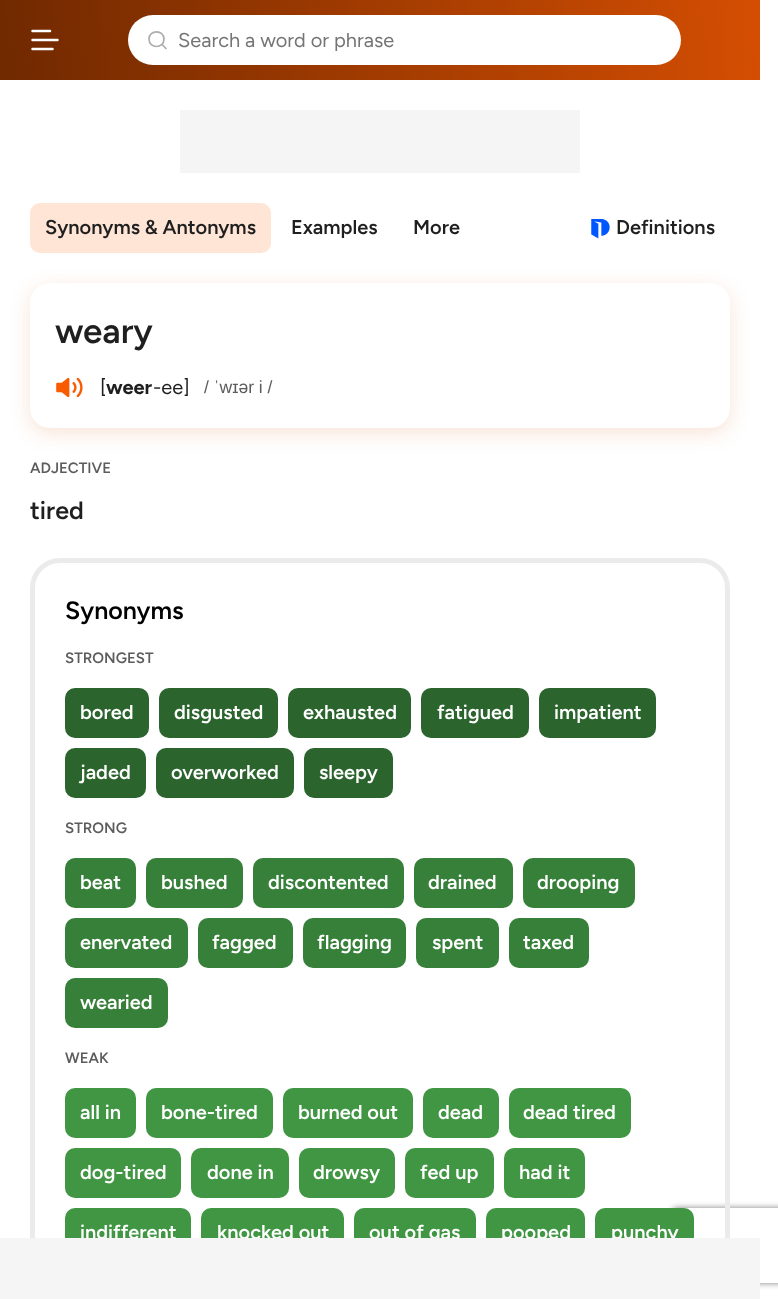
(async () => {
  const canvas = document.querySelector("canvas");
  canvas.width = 778;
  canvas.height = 1299;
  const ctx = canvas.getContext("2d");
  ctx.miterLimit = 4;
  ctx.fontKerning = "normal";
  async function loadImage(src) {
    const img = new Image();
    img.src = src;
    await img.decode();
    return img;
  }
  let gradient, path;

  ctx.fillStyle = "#ffffff";
  ctx.fillRect(0, 0, 778, 1299);
  gradient = ctx.createLinearGradient(-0.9, 68, 761, 12);
  gradient.addColorStop(0, "#702900");
  gradient.addColorStop(1, "#d44e02");
  ctx.fillStyle = gradient;
  ctx.fillRect(0, 0, 760, 80);
  path = new Path2D("M32.5 31H50M32.5 40H57.5M32.5 49H52.5");
  ctx.strokeStyle = "#ffffff";
  ctx.lineWidth = 2.5;
  ctx.lineCap = "round";
  ctx.stroke(path);
  ctx.fillStyle = "#ffffff";
  ctx.beginPath();
  ctx.roundRect(128, 15, 553, 50, 25);
  ctx.fill();
  path = new Path2D("M166 48.5L162 44.5M164 39C164 49 149 49 149 39C149 29.5 164 29.5 164 39Z");
  ctx.strokeStyle = "#adadad";
  ctx.lineWidth = 1.7;
  ctx.lineJoin = "round";
  ctx.stroke(path);
  ctx.fillStyle = "#f5f5f5";
  ctx.fillRect(180, 110, 400, 63);
  ctx.fillStyle = "#ffe5d6";
  ctx.beginPath();
  ctx.roundRect(30, 203, 241, 50, 10);
  ctx.fill();
  ctx.drawImage(await loadImage("img/1.png"), 591, 219, 19, 20);
  ctx.save();
  path = new Path2D("M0 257H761V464H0ZM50 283H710C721 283 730 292 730 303V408C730 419 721 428 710 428H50C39 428 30 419 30 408V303C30 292 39 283 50 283Z");
  ctx.clip(path, "evenodd");
  ctx.fillStyle = "rgba(212, 78, 2, 0.16)";
  ctx.filter = "blur(10px)";
  ctx.beginPath();
  ctx.roundRect(30, 288, 700, 145, 20);
  ctx.fill();
  ctx.filter = "none";
  ctx.restore();
  ctx.drawImage(await loadImage("img/2.png"), 56, 377, 27, 21);
  ctx.save();
  path = new Path2D("M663 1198H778V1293H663ZM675.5 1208H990.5C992 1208 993 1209 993 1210.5V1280.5C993 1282 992 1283 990.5 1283H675.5C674 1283 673 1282 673 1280.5V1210.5C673 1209 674 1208 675.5 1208Z");
  ctx.clip(path, "evenodd");
  ctx.fillStyle = "#808080";
  ctx.filter = "blur(3px)";
  ctx.beginPath();
  ctx.roundRect(673, 1208, 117, 75, 2.5);
  ctx.fill();
  ctx.filter = "none";
  ctx.restore();
  ctx.beginPath();
  ctx.roundRect(32.5, 560.5, 695, 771, 27.5);
  ctx.strokeStyle = "#ebebeb";
  ctx.lineWidth = 5;
  ctx.lineJoin = "miter";
  ctx.stroke();
  ctx.fillStyle = "#2b642d";
  ctx.beginPath();
  ctx.roundRect(65, 688, 84, 50, 10);
  ctx.fill();
  ctx.beginPath();
  ctx.roundRect(159, 688, 119, 50, 10);
  ctx.fill();
  ctx.beginPath();
  ctx.roundRect(288, 688, 123, 50, 10);
  ctx.fill();
  ctx.beginPath();
  ctx.roundRect(421, 688, 108, 50, 10);
  ctx.fill();
  ctx.beginPath();
  ctx.roundRect(539, 688, 117, 50, 10);
  ctx.fill();
  ctx.beginPath();
  ctx.roundRect(65, 748, 81, 50, 10);
  ctx.fill();
  ctx.beginPath();
  ctx.roundRect(156, 748, 138, 50, 10);
  ctx.fill();
  ctx.beginPath();
  ctx.roundRect(304, 748, 89, 50, 10);
  ctx.fill();
  ctx.fillStyle = "#37803a";
  ctx.beginPath();
  ctx.roundRect(65, 858, 71, 50, 10);
  ctx.fill();
  ctx.beginPath();
  ctx.roundRect(146, 858, 97, 50, 10);
  ctx.fill();
  ctx.beginPath();
  ctx.roundRect(253, 858, 151, 50, 10);
  ctx.fill();
  ctx.beginPath();
  ctx.roundRect(414, 858, 99, 50, 10);
  ctx.fill();
  ctx.beginPath();
  ctx.roundRect(523, 858, 112, 50, 10);
  ctx.fill();
  ctx.beginPath();
  ctx.roundRect(65, 918, 123, 50, 10);
  ctx.fill();
  ctx.beginPath();
  ctx.roundRect(198, 918, 95, 50, 10);
  ctx.fill();
  ctx.beginPath();
  ctx.roundRect(303, 918, 103, 50, 10);
  ctx.fill();
  ctx.beginPath();
  ctx.roundRect(416, 918, 83, 50, 10);
  ctx.fill();
  ctx.beginPath();
  ctx.roundRect(509, 918, 80, 50, 10);
  ctx.fill();
  ctx.beginPath();
  ctx.roundRect(65, 978, 103, 50, 10);
  ctx.fill();
  ctx.fillStyle = "#419644";
  ctx.beginPath();
  ctx.roundRect(65, 1088, 71, 50, 10);
  ctx.fill();
  ctx.beginPath();
  ctx.roundRect(146, 1088, 127, 50, 10);
  ctx.fill();
  ctx.beginPath();
  ctx.roundRect(283, 1088, 130, 50, 10);
  ctx.fill();
  ctx.beginPath();
  ctx.roundRect(423, 1088, 76, 50, 10);
  ctx.fill();
  ctx.beginPath();
  ctx.roundRect(509, 1088, 122, 50, 10);
  ctx.fill();
  ctx.beginPath();
  ctx.roundRect(65, 1148, 116, 50, 10);
  ctx.fill();
  ctx.beginPath();
  ctx.roundRect(191, 1148, 98, 50, 10);
  ctx.fill();
  ctx.beginPath();
  ctx.roundRect(299, 1148, 96, 50, 10);
  ctx.fill();
  ctx.beginPath();
  ctx.roundRect(405, 1148, 89, 50, 10);
  ctx.fill();
  ctx.beginPath();
  ctx.roundRect(504, 1148, 81, 50, 10);
  ctx.fill();
  ctx.beginPath();
  ctx.roundRect(65, 1208, 126, 50, 10);
  ctx.fill();
  ctx.beginPath();
  ctx.roundRect(201, 1208, 143, 50, 10);
  ctx.fill();
  ctx.beginPath();
  ctx.roundRect(354, 1208, 122, 50, 10);
  ctx.fill();
  ctx.beginPath();
  ctx.roundRect(486, 1208, 99, 50, 10);
  ctx.fill();
  ctx.beginPath();
  ctx.roundRect(595, 1208, 99, 50, 10);
  ctx.fill();
  ctx.font = "20px Figtree";
  ctx.fillStyle = "#757575";
  ctx.fillText("Search a word or phrase", 178, 47);
  ctx.font = "600 20px Figtree";
  ctx.fillStyle = "#1f1f1f";
  for (const [text, x, y] of [
    ["Synonyms & Antonyms", 45, 234],
    ["Examples", 291, 234],
    ["More", 413, 234],
    ["Definitions", 616, 234],
  ]) {
    ctx.fillText(text, x, y);
  }
  ctx.font = "600 35px Figtree";
  ctx.fillText("weary", 55, 343);
  ctx.font = "20px Figtree";
  ctx.fillText("[", 100, 394);
  ctx.font = "bold 20px Figtree";
  ctx.fillText("weer", 106, 394);
  ctx.font = "20px Figtree";
  ctx.fillText("-ee]", 153, 394);
  ctx.font = "17.5px Liberation Sans";
  ctx.fillStyle = "#5c5c5c";
  ctx.fillText("/ ˈwɪər i /", 204, 393);
  ctx.font = "600 15px Figtree";
  ctx.fillText("ADJECTIVE", 30, 473);
  ctx.font = "600 25px Figtree";
  ctx.fillStyle = "#1f1f1f";
  ctx.fillText("tired", 30, 519);
  ctx.fillStyle = "#000000";
  ctx.fillText("Synonyms", 65, 619);
  ctx.font = "600 15px Figtree";
  ctx.fillStyle = "#5c5c5c";
  ctx.fillText("STRONGEST", 65, 663);
  ctx.font = "600 20px Figtree";
  ctx.fillStyle = "#ffffff";
  for (const [text, x, y] of [
    ["bored", 80, 719],
    ["disgusted", 174, 719],
    ["exhausted", 303, 719],
    ["fatigued", 437, 719],
    ["impatient", 554, 719],
    ["jaded", 80, 779],
    ["overworked", 171, 779],
    ["sleepy", 319, 779],
  ]) {
    ctx.fillText(text, x, y);
  }
  ctx.font = "600 15px Figtree";
  ctx.fillStyle = "#5c5c5c";
  ctx.fillText("STRONG", 65, 833);
  ctx.font = "600 20px Figtree";
  ctx.fillStyle = "#ffffff";
  for (const [text, x, y] of [
    ["beat", 80, 889],
    ["bushed", 161, 889],
    ["discontented", 268, 889],
    ["drained", 428, 889],
    ["drooping", 537, 889],
    ["enervated", 80, 949],
    ["fagged", 212, 949],
    ["flagging", 317, 949],
    ["spent", 432, 949],
    ["taxed", 523, 949],
    ["wearied", 80, 1009],
  ]) {
    ctx.fillText(text, x, y);
  }
  ctx.font = "600 15px Figtree";
  ctx.fillStyle = "#5c5c5c";
  ctx.fillText("WEAK", 65, 1063);
  ctx.font = "600 20px Figtree";
  ctx.fillStyle = "#ffffff";
  for (const [text, x, y] of [
    ["all in", 80, 1119],
    ["bone-tired", 161, 1119],
    ["burned out", 298, 1119],
    ["dead", 438, 1119],
    ["dead tired", 523, 1119],
    ["dog-tired", 80, 1179],
    ["done in", 207, 1179],
    ["drowsy", 313, 1179],
    ["fed up", 420, 1179],
    ["had it", 519, 1179],
    ["indifferent", 80, 1239],
    ["knocked out", 217, 1239],
    ["out of gas", 369, 1239],
    ["pooped", 501, 1239],
    ["punchy", 611, 1239],
  ]) {
    ctx.fillText(text, x, y);
  }
  ctx.fillStyle = "#f5f5f5";
  ctx.fillRect(0, 1238, 760, 61);
})();
